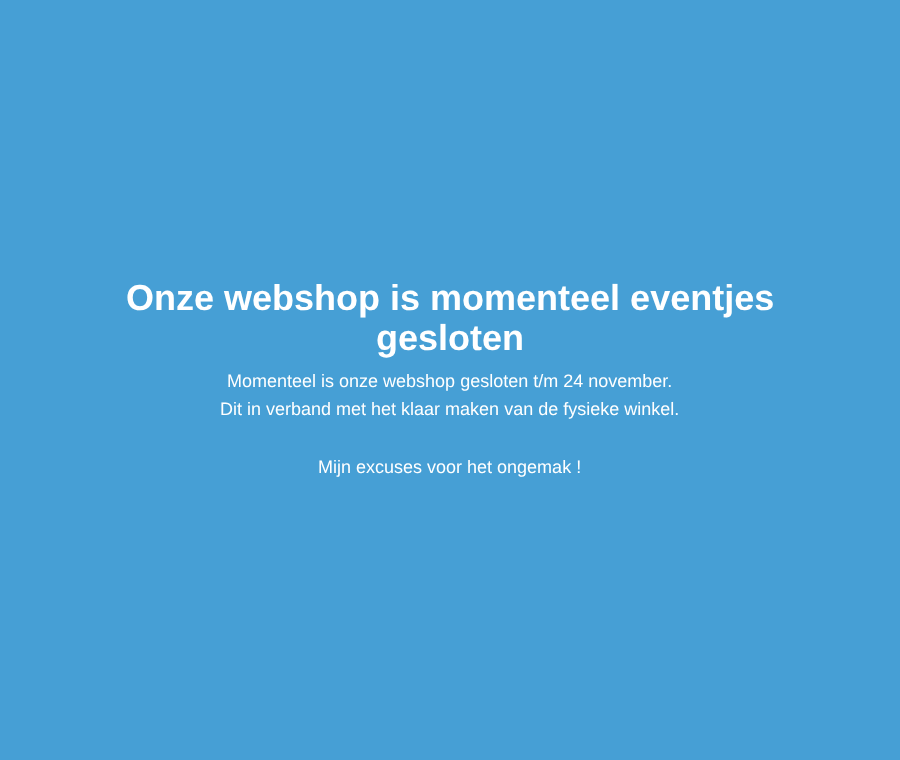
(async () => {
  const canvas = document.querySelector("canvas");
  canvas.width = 900;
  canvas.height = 760;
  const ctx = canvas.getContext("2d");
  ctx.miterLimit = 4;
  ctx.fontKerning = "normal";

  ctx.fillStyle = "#469fd5";
  ctx.fillRect(0, 0, 900, 760);
  ctx.font = "bold 36px Liberation Sans";
  ctx.fillStyle = "#ffffff";
  ctx.fillText("Onze webshop is momenteel eventjes", 126, 310);
  ctx.fillText("gesloten", 376, 350);
  ctx.font = "18px Liberation Sans";
  for (const [text, x, y] of [
    ["Momenteel is onze webshop gesloten t/m 24 november.", 227, 387],
    ["Dit in verband met het klaar maken van de fysieke winkel.", 220, 415],
    ["Mijn excuses voor het ongemak !", 318, 473],
  ]) {
    ctx.fillText(text, x, y);
  }
})();
